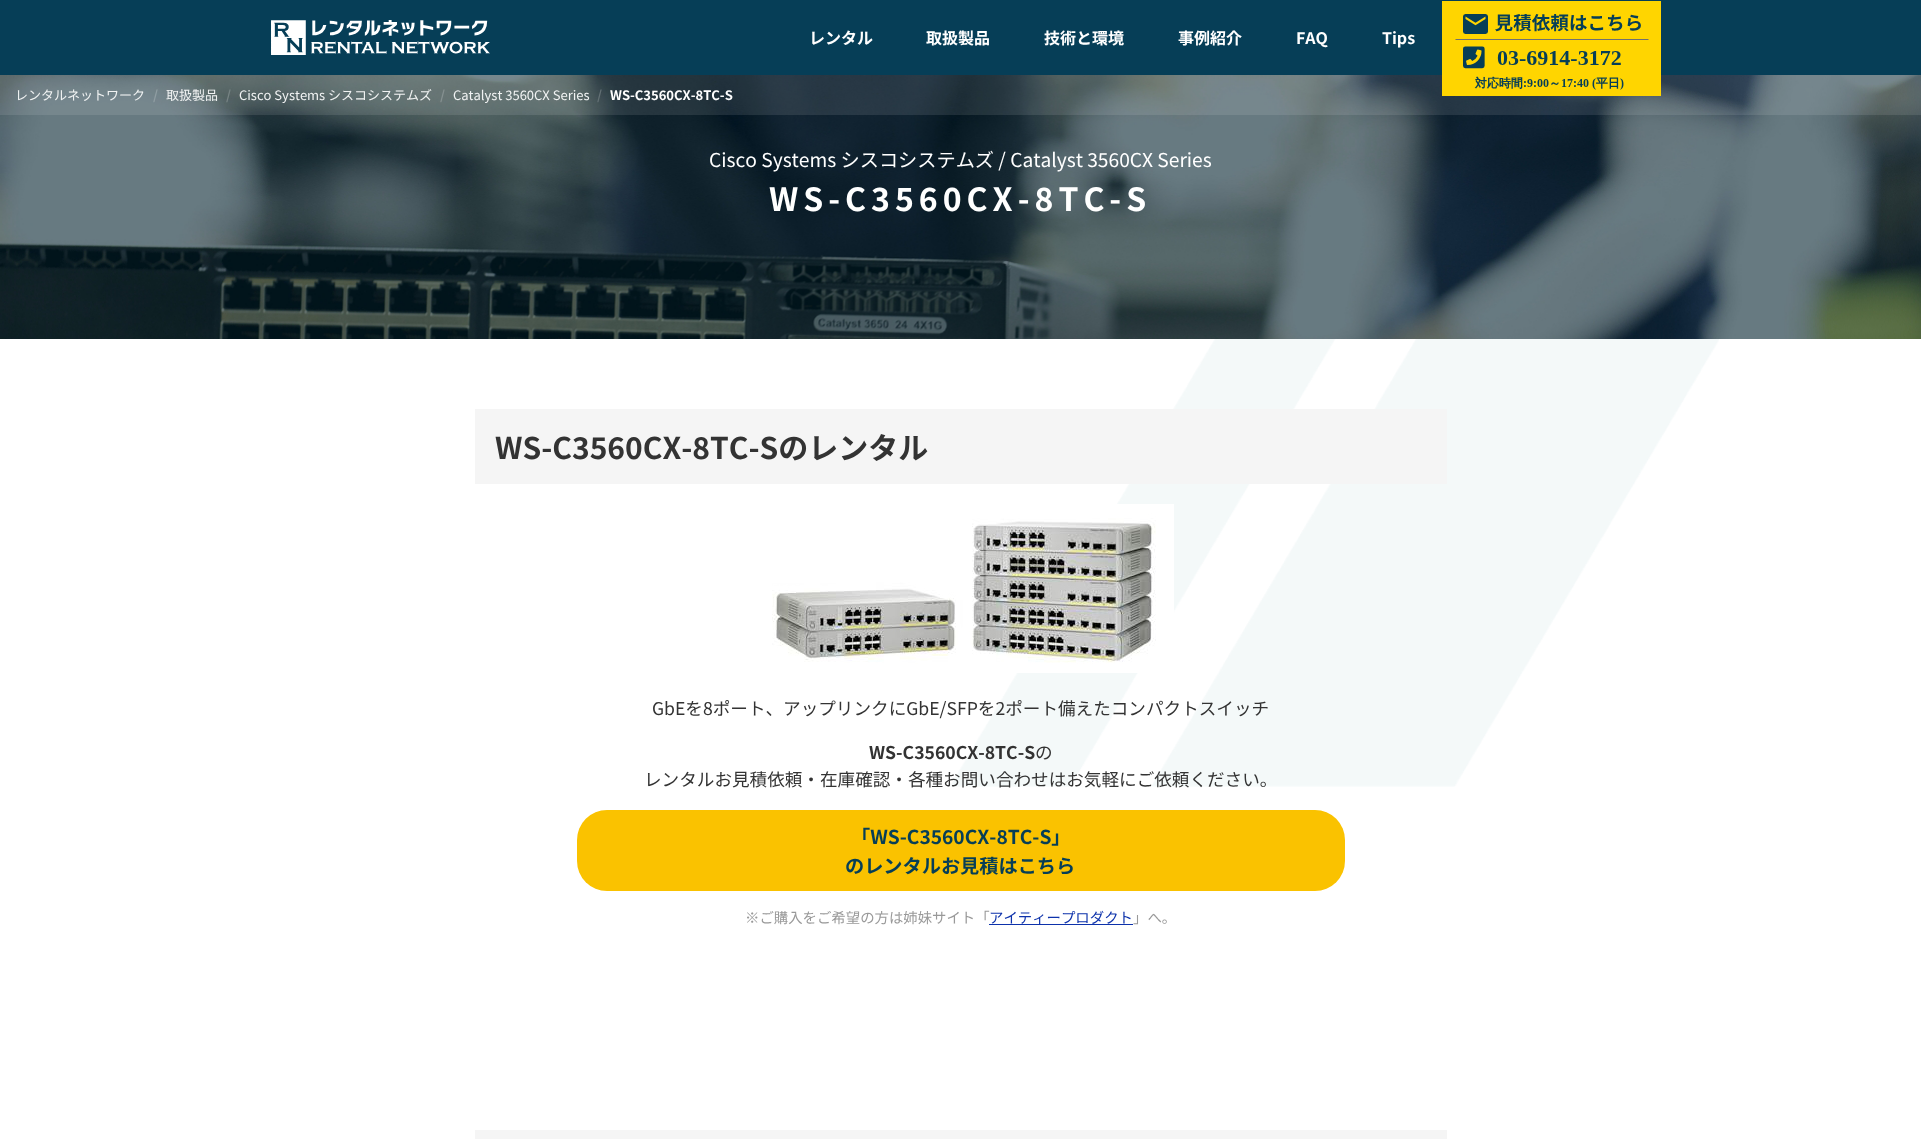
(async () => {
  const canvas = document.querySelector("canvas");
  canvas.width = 1921;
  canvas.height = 1139;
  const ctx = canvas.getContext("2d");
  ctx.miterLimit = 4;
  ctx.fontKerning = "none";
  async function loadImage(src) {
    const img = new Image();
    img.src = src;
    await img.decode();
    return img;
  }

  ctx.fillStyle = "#ffffff";
  ctx.fillRect(0, 0, 1921, 1139);
  ctx.fillStyle = "#063e57";
  ctx.fillRect(0, 0, 1921, 75);
  ctx.drawImage(await loadImage("img/1.png"), 271, 20, 219, 35);
  ctx.drawImage(await loadImage("img/3.png"), 0, 75, 1921, 264);
  ctx.fillStyle = "rgba(255, 255, 255, 0.1)";
  ctx.fillRect(0, 75, 1921, 40);
  ctx.drawImage(await loadImage("img/2.png"), 1442, 1, 219, 95);
  ctx.drawImage(await loadImage("img/4.png"), 950, 339, 769, 448);
  ctx.fillStyle = "#f5f5f5";
  ctx.fillRect(475, 409, 972, 75);
  ctx.drawImage(await loadImage("img/5.png"), 772, 504, 402, 169);
  ctx.fillStyle = "#fac200";
  ctx.beginPath();
  ctx.roundRect(577, 810, 768, 81, 30);
  ctx.fill();
  ctx.fillStyle = "#0d32ab";
  ctx.fillRect(989, 924, 144, 1);
  ctx.fillStyle = "#f5f5f5";
  ctx.fillRect(475, 1130, 972, 9);
  ctx.font = "bold 16px Noto Sans JP";
  ctx.fillStyle = "#ffffff";
  for (const [text, x, y] of [
    ["レンタル", 809, 44],
    ["取扱製品", 926, 44],
    ["技術と環境", 1044, 44],
    ["事例紹介", 1178, 44],
    ["FAQ", 1296, 44],
    ["Tips", 1382, 44],
  ]) {
    ctx.fillText(text, x, y);
  }
  ctx.font = "13px Noto Sans JP";
  ctx.fillStyle = "#f1f3f3";
  ctx.fillText("レンタルネットワーク", 15, 100);
  ctx.font = "bold 13px Noto Sans JP";
  ctx.fillStyle = "#8f9da2";
  ctx.fillText("/", 153, 100);
  ctx.font = "13px Noto Sans JP";
  ctx.fillStyle = "#f1f3f3";
  ctx.fillText("取扱製品", 166, 100);
  ctx.font = "bold 13px Noto Sans JP";
  ctx.fillStyle = "#768383";
  ctx.fillText("/", 226, 100);
  ctx.font = "13px Noto Sans JP";
  ctx.fillStyle = "#f1f3f3";
  ctx.fillText("Cisco Systems シスコシステムズ", 239, 100);
  ctx.font = "bold 13px Noto Sans JP";
  ctx.fillStyle = "#859090";
  ctx.fillText("/", 440, 100);
  ctx.font = "13px Noto Sans JP";
  ctx.fillStyle = "#f1f3f3";
  ctx.fillText("Catalyst 3560CX Series", 453, 100);
  ctx.font = "bold 13px Noto Sans JP";
  ctx.fillStyle = "#637074";
  ctx.fillText("/", 597, 100);
  ctx.fillStyle = "#ffffff";
  ctx.fillText("WS-C3560CX-8TC-S", 610, 100);
  ctx.font = "19.2px Noto Sans JP";
  ctx.fillText("Cisco Systems シスコシステムズ / Catalyst 3560CX Series", 709, 167);
  ctx.letterSpacing = "5px";
  ctx.font = "bold 32px Noto Sans JP";
  ctx.fillText("WS-C3560CX-8TC-S", 769, 211);
  ctx.letterSpacing = "0px";
  ctx.font = "bold 30px Noto Sans JP";
  ctx.fillStyle = "#333333";
  ctx.fillText("WS-C3560CX-8TC-Sのレンタル", 495, 459);
  ctx.font = "17.6px Noto Sans JP";
  ctx.fillText("GbEを8ポート、アップリンクにGbE/SFPを2ポート備えたコンパクトスイッチ", 652, 715);
  ctx.font = "bold 17.6px Noto Sans JP";
  ctx.fillText("WS-C3560CX-8TC-S", 869, 759);
  ctx.font = "17.6px Noto Sans JP";
  ctx.fillText("の", 1035, 759);
  ctx.fillText("レンタルお見積依頼・在庫確認・各種お問い合わせはお気軽にご依頼ください。", 644, 786);
  ctx.font = "bold 19.2px Noto Sans JP";
  ctx.fillStyle = "#063e57";
  ctx.fillText("「WS-C3560CX-8TC-S」", 851, 844);
  ctx.fillText("のレンタルお見積はこちら", 845, 873);
  ctx.font = "14.4px Noto Sans JP";
  ctx.fillStyle = "#999999";
  ctx.fillText("※ご購入をご希望の方は姉妹サイト「", 745, 923);
  ctx.fillStyle = "#0d32ab";
  ctx.fillText("アイティープロダクト", 989, 923);
  ctx.fillStyle = "#999999";
  ctx.fillText("」へ。", 1133, 923);
})();
